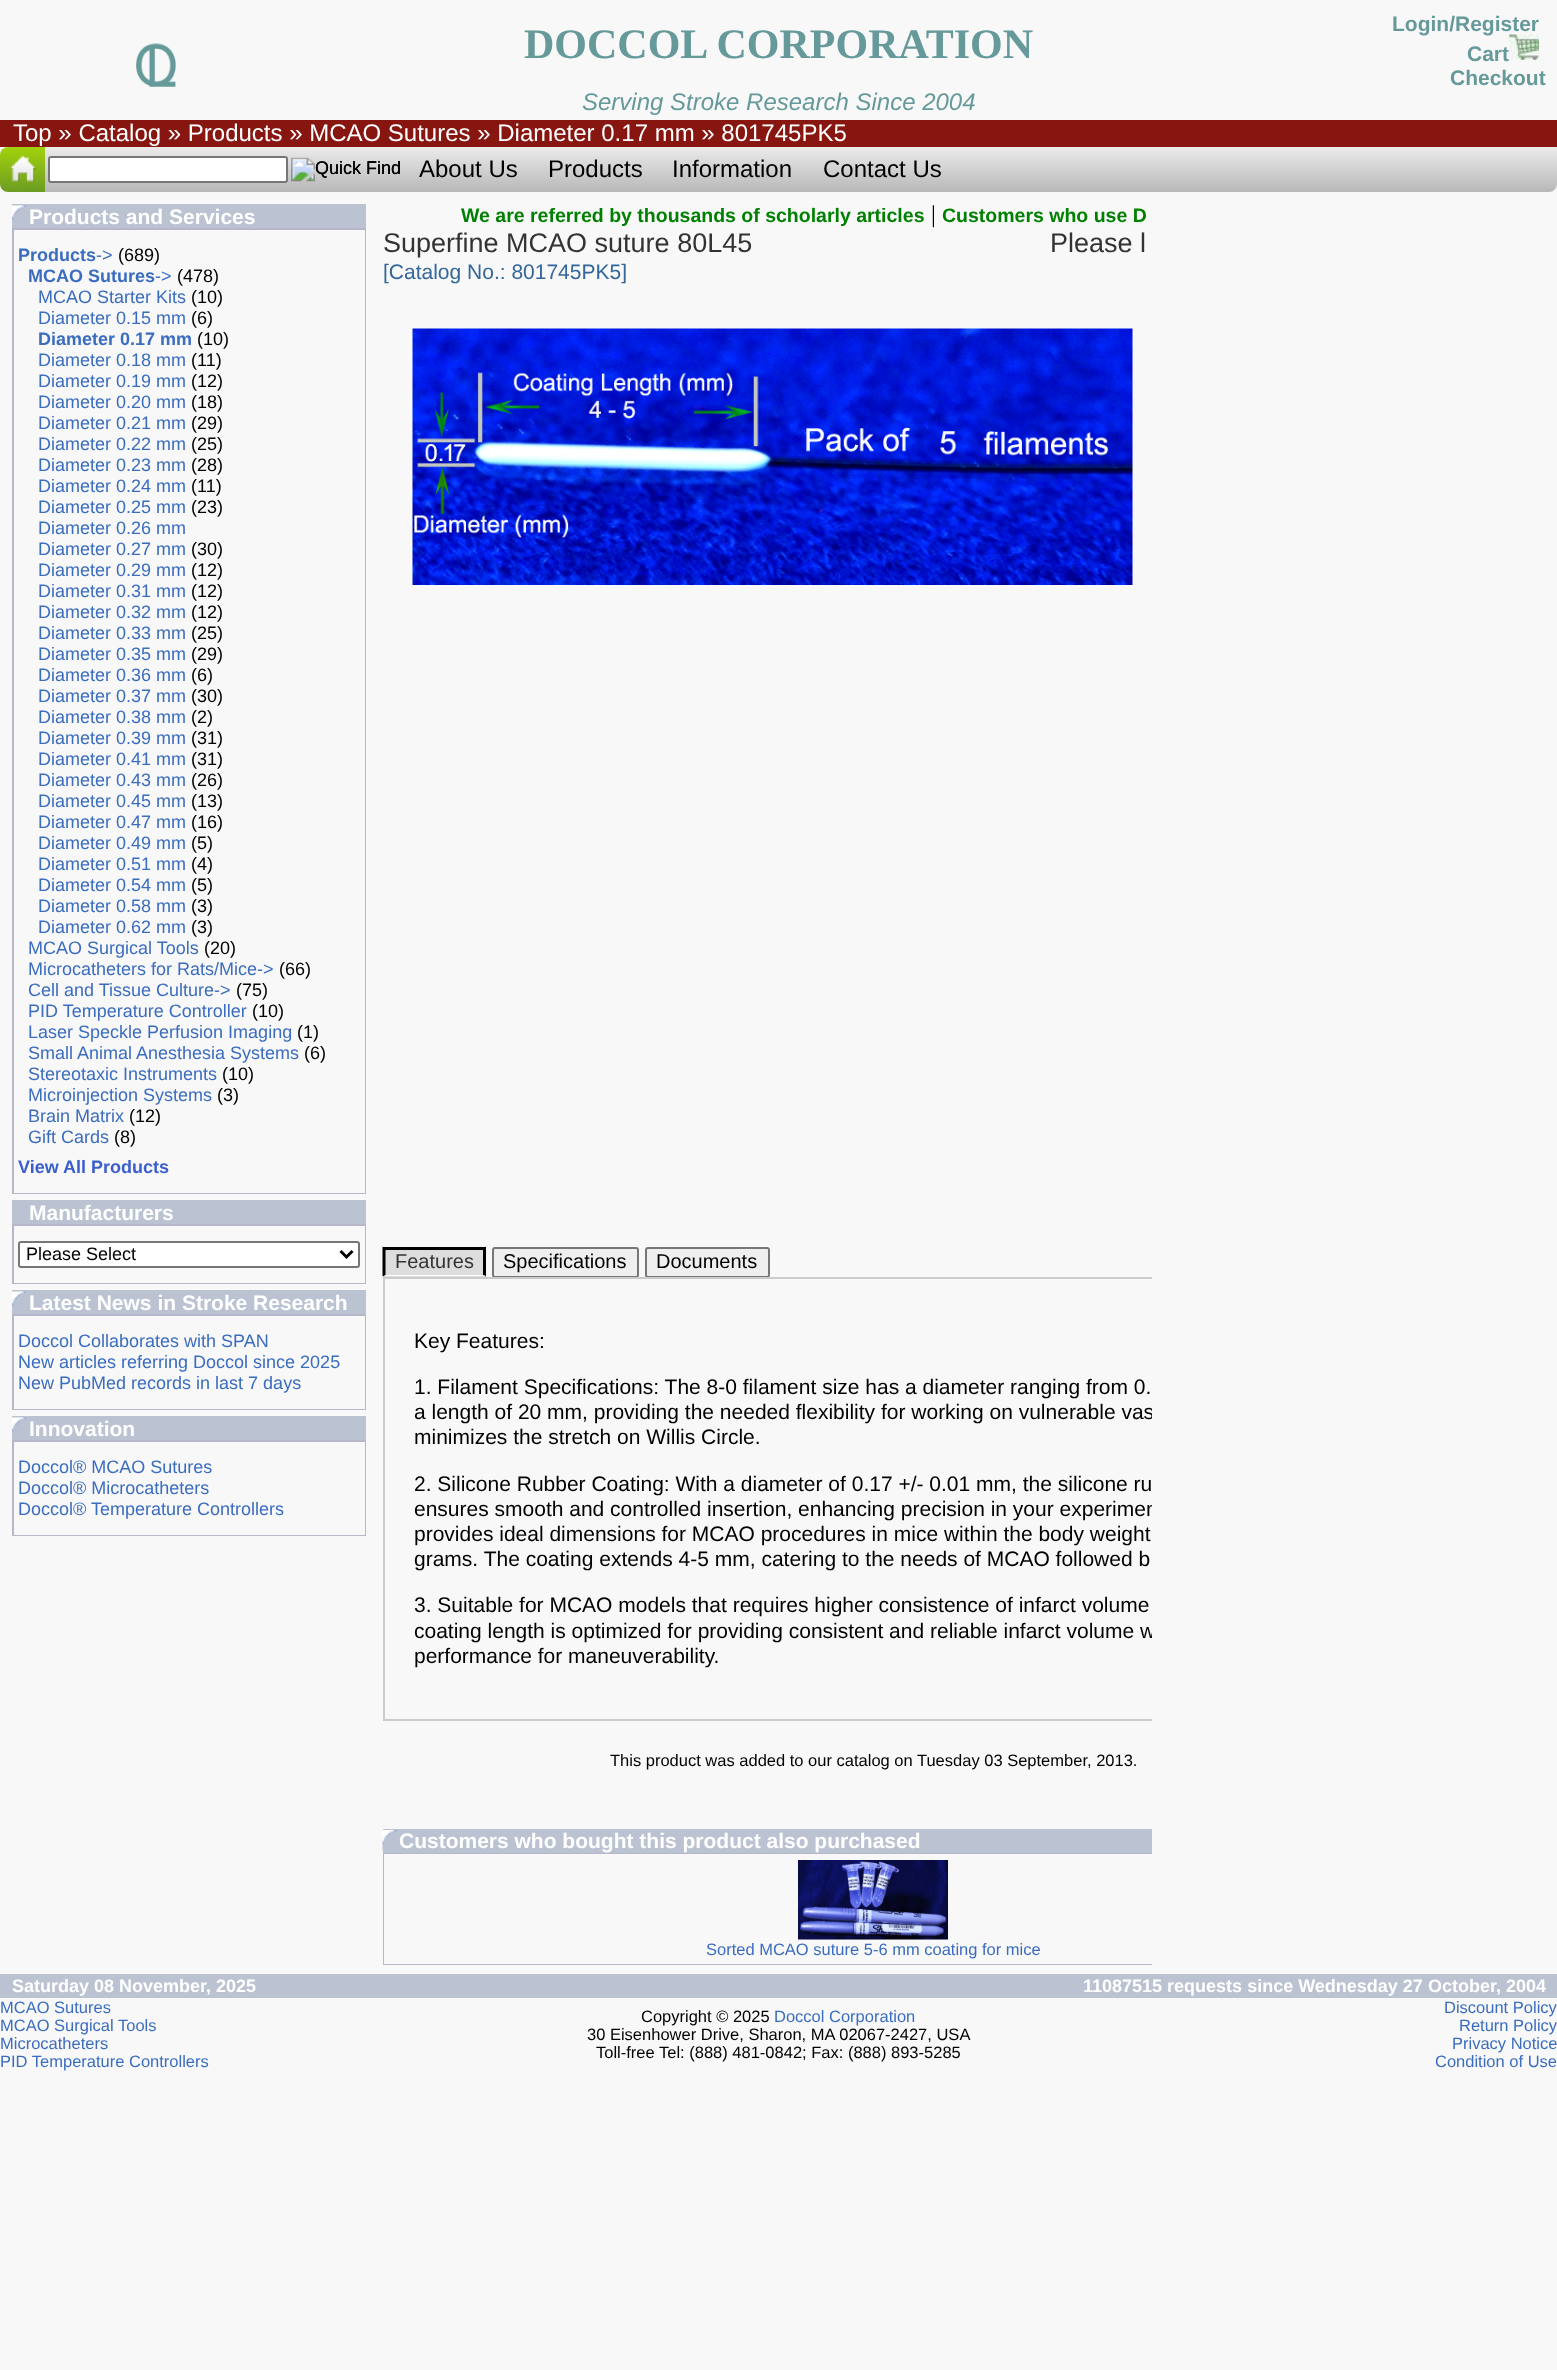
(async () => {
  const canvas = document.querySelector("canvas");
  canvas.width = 1557;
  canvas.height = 2370;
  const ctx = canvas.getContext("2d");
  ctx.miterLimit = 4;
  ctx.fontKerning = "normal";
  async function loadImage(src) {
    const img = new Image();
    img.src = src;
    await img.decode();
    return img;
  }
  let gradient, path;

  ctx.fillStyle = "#f8f8f9";
  ctx.fillRect(0, 0, 1557, 2370);
  ctx.drawImage(await loadImage("img/1.png"), 136, 43, 40, 44);
  ctx.fillStyle = "#871611";
  ctx.fillRect(0, 120, 1557, 27);
  gradient = ctx.createLinearGradient(782, 147, 782, 192);
  gradient.addColorStop(0, "#ebebeb");
  gradient.addColorStop(1, "#b8b8b8");
  ctx.fillStyle = gradient;
  ctx.beginPath();
  ctx.roundRect(8, 147, 1549, 45, [0, 0, 8, 0]);
  ctx.fill();
  gradient = ctx.createLinearGradient(22, 147, 23, 192);
  gradient.addColorStop(0, "#a2d20c");
  gradient.addColorStop(1, "#6c9c23");
  ctx.fillStyle = gradient;
  ctx.beginPath();
  ctx.roundRect(0, 147, 45, 45, [8, 0, 0, 8]);
  ctx.fill();
  ctx.drawImage(await loadImage("img/3.png"), 10, 155, 27, 27);
  ctx.fillStyle = "#ffffff";
  ctx.beginPath();
  ctx.roundRect(49, 157, 238, 25, 2);
  ctx.fill();
  ctx.strokeStyle = "#767676";
  ctx.lineWidth = 2;
  ctx.stroke();
  ctx.drawImage(await loadImage("img/4.png"), 291, 157, 109, 25);
  ctx.fillStyle = "#bbc3d3";
  ctx.fillRect(12, 204, 354, 24);
  ctx.drawImage(await loadImage("img/5.png"), 12, 205, 15, 16);
  for (const [x, y, w, h, color] of [
    [12, 228, 354, 966, "#b6b7cb"],
    [14, 230, 351, 963, "#f8f8f9"],
    [12, 1200, 354, 24, "#bbc3d3"],
    [12, 1224, 354, 60, "#b6b7cb"],
    [14, 1226, 351, 57, "#f8f8f9"],
  ]) {
    ctx.fillStyle = color;
    ctx.fillRect(x, y, w, h);
  }
  ctx.fillStyle = "#ffffff";
  ctx.beginPath();
  ctx.roundRect(19, 1242, 340, 25, 2);
  ctx.fill();
  ctx.stroke();
  path = new Path2D("M340.5 1251L346.5 1257L352.5 1251");
  ctx.strokeStyle = "#000000";
  ctx.lineWidth = 3;
  ctx.stroke(path);
  ctx.fillStyle = "#bbc3d3";
  ctx.fillRect(12, 1290, 354, 24);
  ctx.drawImage(await loadImage("img/5.png"), 12, 1291, 15, 16);
  for (const [x, y, w, h, color] of [
    [12, 1314, 354, 96, "#b6b7cb"],
    [14, 1316, 351, 93, "#f8f8f9"],
    [12, 1416, 354, 24, "#bbc3d3"],
  ]) {
    ctx.fillStyle = color;
    ctx.fillRect(x, y, w, h);
  }
  ctx.drawImage(await loadImage("img/5.png"), 12, 1417, 15, 16);
  ctx.fillStyle = "#b6b7cb";
  ctx.fillRect(12, 1440, 354, 96);
  ctx.fillStyle = "#f8f8f9";
  ctx.fillRect(14, 1442, 351, 93);
  ctx.drawImage(await loadImage("img/6.png"), 412, 328, 721, 257);
  ctx.fillStyle = "#dddddd";
  ctx.fillRect(383, 1250, 103, 27);
  ctx.fillStyle = "#000000";
  ctx.fillRect(383, 1247, 103, 3);
  path = new Path2D("M486 1246.5V1276.5L483 1275V1249.5Z");
  ctx.fill(path);
  ctx.fillStyle = "#ffffff";
  path = new Path2D("M486 1276H382L386 1275H483Z");
  ctx.fill(path);
  ctx.fillStyle = "#000000";
  path = new Path2D("M382.5 1276.5V1246.5L385.5 1249.5V1275Z");
  ctx.fill(path);
  ctx.fillStyle = "#efefef";
  ctx.beginPath();
  ctx.roundRect(493, 1248, 145, 29, 2);
  ctx.fill();
  ctx.strokeStyle = "#767676";
  ctx.lineWidth = 2;
  ctx.stroke();
  ctx.beginPath();
  ctx.roundRect(646, 1248, 123, 29, 2);
  ctx.fill();
  ctx.stroke();
  ctx.save();
  ctx.beginPath();
  ctx.rect(0, 192, 1152, 1782);
  ctx.clip();
  ctx.strokeStyle = "#cccccc";
  ctx.strokeRect(384, 1278, 980, 442);
  ctx.restore();
  ctx.fillStyle = "#bbc3d3";
  ctx.fillRect(383, 1829, 769, 24);
  ctx.drawImage(await loadImage("img/7.png"), 382, 1830, 16, 21);
  ctx.fillStyle = "#b6b7cb";
  ctx.fillRect(383, 1853, 769, 112);
  ctx.fillStyle = "#f8f8f9";
  ctx.fillRect(384, 1854, 768, 110);
  ctx.drawImage(await loadImage("img/8.png"), 798, 1860, 150, 80);
  ctx.fillStyle = "#bbc3d3";
  ctx.fillRect(0, 1974, 1557, 24);
  ctx.font = "bold 42px Liberation Serif";
  ctx.fillStyle = "#669999";
  ctx.fillText("DOCCOL CORPORATION", 524, 58);
  ctx.font = "bold 21px Liberation Sans";
  ctx.fillText("Login/Register", 1392, 31);
  ctx.fillText("Cart", 1467, 61);
  ctx.drawImage(await loadImage("img/2.png"), 1509, 34, 30, 26);
  ctx.fillText("Checkout", 1450, 85);
  ctx.font = "italic 24px Liberation Sans";
  ctx.fillText("Serving Stroke Research Since 2004", 582, 110);
  ctx.font = "24px Liberation Sans";
  ctx.fillStyle = "#ffffff";
  ctx.fillText("Top » Catalog » Products » MCAO Sutures » Diameter 0.17 mm » 801745PK5", 13, 141);
  ctx.font = "18px Liberation Sans";
  ctx.fillStyle = "#000000";
  ctx.fillText("Quick Find", 315, 174);
  ctx.font = "24px Liberation Sans";
  for (const [text, x, y] of [
    ["About Us", 419, 177],
    ["Products", 548, 177],
    ["Information", 672, 177],
    ["Contact Us", 823, 177],
  ]) {
    ctx.fillText(text, x, y);
  }
  ctx.font = "bold 21px Liberation Sans";
  ctx.fillStyle = "#ffffff";
  ctx.fillText("Products and Services", 29, 224);
  ctx.font = "bold 18px Liberation Sans";
  ctx.fillStyle = "#3b6dbf";
  ctx.fillText("Products", 18, 261);
  ctx.font = "18px Liberation Sans";
  ctx.fillText("->", 96, 261);
  ctx.fillStyle = "#000000";
  ctx.fillText("(689)", 118, 261);
  ctx.font = "bold 18px Liberation Sans";
  ctx.fillStyle = "#3b6dbf";
  ctx.fillText("MCAO Sutures", 28, 282);
  ctx.font = "18px Liberation Sans";
  ctx.fillText("->", 155, 282);
  ctx.fillStyle = "#000000";
  ctx.fillText("(478)", 177, 282);
  ctx.fillStyle = "#3b6dbf";
  ctx.fillText("MCAO Starter Kits", 38, 303);
  ctx.fillStyle = "#000000";
  ctx.fillText("(10)", 191, 303);
  ctx.fillStyle = "#3b6dbf";
  ctx.fillText("Diameter 0.15 mm", 38, 324);
  ctx.fillStyle = "#000000";
  ctx.fillText("(6)", 191, 324);
  ctx.font = "bold 18px Liberation Sans";
  ctx.fillStyle = "#3b6dbf";
  ctx.fillText("Diameter 0.17 mm", 38, 345);
  ctx.font = "18px Liberation Sans";
  ctx.fillStyle = "#000000";
  ctx.fillText("(10)", 197, 345);
  ctx.fillStyle = "#3b6dbf";
  ctx.fillText("Diameter 0.18 mm", 38, 366);
  ctx.fillStyle = "#000000";
  ctx.fillText("(11)", 191, 366);
  ctx.fillStyle = "#3b6dbf";
  ctx.fillText("Diameter 0.19 mm", 38, 387);
  ctx.fillStyle = "#000000";
  ctx.fillText("(12)", 191, 387);
  ctx.fillStyle = "#3b6dbf";
  ctx.fillText("Diameter 0.20 mm", 38, 408);
  ctx.fillStyle = "#000000";
  ctx.fillText("(18)", 191, 408);
  ctx.fillStyle = "#3b6dbf";
  ctx.fillText("Diameter 0.21 mm", 38, 429);
  ctx.fillStyle = "#000000";
  ctx.fillText("(29)", 191, 429);
  ctx.fillStyle = "#3b6dbf";
  ctx.fillText("Diameter 0.22 mm", 38, 450);
  ctx.fillStyle = "#000000";
  ctx.fillText("(25)", 191, 450);
  ctx.fillStyle = "#3b6dbf";
  ctx.fillText("Diameter 0.23 mm", 38, 471);
  ctx.fillStyle = "#000000";
  ctx.fillText("(28)", 191, 471);
  ctx.fillStyle = "#3b6dbf";
  ctx.fillText("Diameter 0.24 mm", 38, 492);
  ctx.fillStyle = "#000000";
  ctx.fillText("(11)", 191, 492);
  ctx.fillStyle = "#3b6dbf";
  ctx.fillText("Diameter 0.25 mm", 38, 513);
  ctx.fillStyle = "#000000";
  ctx.fillText("(23)", 191, 513);
  ctx.fillStyle = "#3b6dbf";
  ctx.fillText("Diameter 0.26 mm", 38, 534);
  ctx.fillText("Diameter 0.27 mm", 38, 555);
  ctx.fillStyle = "#000000";
  ctx.fillText("(30)", 191, 555);
  ctx.fillStyle = "#3b6dbf";
  ctx.fillText("Diameter 0.29 mm", 38, 576);
  ctx.fillStyle = "#000000";
  ctx.fillText("(12)", 191, 576);
  ctx.fillStyle = "#3b6dbf";
  ctx.fillText("Diameter 0.31 mm", 38, 597);
  ctx.fillStyle = "#000000";
  ctx.fillText("(12)", 191, 597);
  ctx.fillStyle = "#3b6dbf";
  ctx.fillText("Diameter 0.32 mm", 38, 618);
  ctx.fillStyle = "#000000";
  ctx.fillText("(12)", 191, 618);
  ctx.fillStyle = "#3b6dbf";
  ctx.fillText("Diameter 0.33 mm", 38, 639);
  ctx.fillStyle = "#000000";
  ctx.fillText("(25)", 191, 639);
  ctx.fillStyle = "#3b6dbf";
  ctx.fillText("Diameter 0.35 mm", 38, 660);
  ctx.fillStyle = "#000000";
  ctx.fillText("(29)", 191, 660);
  ctx.fillStyle = "#3b6dbf";
  ctx.fillText("Diameter 0.36 mm", 38, 681);
  ctx.fillStyle = "#000000";
  ctx.fillText("(6)", 191, 681);
  ctx.fillStyle = "#3b6dbf";
  ctx.fillText("Diameter 0.37 mm", 38, 702);
  ctx.fillStyle = "#000000";
  ctx.fillText("(30)", 191, 702);
  ctx.fillStyle = "#3b6dbf";
  ctx.fillText("Diameter 0.38 mm", 38, 723);
  ctx.fillStyle = "#000000";
  ctx.fillText("(2)", 191, 723);
  ctx.fillStyle = "#3b6dbf";
  ctx.fillText("Diameter 0.39 mm", 38, 744);
  ctx.fillStyle = "#000000";
  ctx.fillText("(31)", 191, 744);
  ctx.fillStyle = "#3b6dbf";
  ctx.fillText("Diameter 0.41 mm", 38, 765);
  ctx.fillStyle = "#000000";
  ctx.fillText("(31)", 191, 765);
  ctx.fillStyle = "#3b6dbf";
  ctx.fillText("Diameter 0.43 mm", 38, 786);
  ctx.fillStyle = "#000000";
  ctx.fillText("(26)", 191, 786);
  ctx.fillStyle = "#3b6dbf";
  ctx.fillText("Diameter 0.45 mm", 38, 807);
  ctx.fillStyle = "#000000";
  ctx.fillText("(13)", 191, 807);
  ctx.fillStyle = "#3b6dbf";
  ctx.fillText("Diameter 0.47 mm", 38, 828);
  ctx.fillStyle = "#000000";
  ctx.fillText("(16)", 191, 828);
  ctx.fillStyle = "#3b6dbf";
  ctx.fillText("Diameter 0.49 mm", 38, 849);
  ctx.fillStyle = "#000000";
  ctx.fillText("(5)", 191, 849);
  ctx.fillStyle = "#3b6dbf";
  ctx.fillText("Diameter 0.51 mm", 38, 870);
  ctx.fillStyle = "#000000";
  ctx.fillText("(4)", 191, 870);
  ctx.fillStyle = "#3b6dbf";
  ctx.fillText("Diameter 0.54 mm", 38, 891);
  ctx.fillStyle = "#000000";
  ctx.fillText("(5)", 191, 891);
  ctx.fillStyle = "#3b6dbf";
  ctx.fillText("Diameter 0.58 mm", 38, 912);
  ctx.fillStyle = "#000000";
  ctx.fillText("(3)", 191, 912);
  ctx.fillStyle = "#3b6dbf";
  ctx.fillText("Diameter 0.62 mm", 38, 933);
  ctx.fillStyle = "#000000";
  ctx.fillText("(3)", 191, 933);
  ctx.fillStyle = "#3b6dbf";
  ctx.fillText("MCAO Surgical Tools", 28, 954);
  ctx.fillStyle = "#000000";
  ctx.fillText("(20)", 204, 954);
  ctx.fillStyle = "#3b6dbf";
  ctx.fillText("Microcatheters for Rats/Mice->", 28, 975);
  ctx.fillStyle = "#000000";
  ctx.fillText("(66)", 279, 975);
  ctx.fillStyle = "#3b6dbf";
  ctx.fillText("Cell and Tissue Culture->", 28, 996);
  ctx.fillStyle = "#000000";
  ctx.fillText("(75)", 236, 996);
  ctx.fillStyle = "#3b6dbf";
  ctx.fillText("PID Temperature Controller", 28, 1017);
  ctx.fillStyle = "#000000";
  ctx.fillText("(10)", 252, 1017);
  ctx.fillStyle = "#3b6dbf";
  ctx.fillText("Laser Speckle Perfusion Imaging", 28, 1038);
  ctx.fillStyle = "#000000";
  ctx.fillText("(1)", 297, 1038);
  ctx.fillStyle = "#3b6dbf";
  ctx.fillText("Small Animal Anesthesia Systems", 28, 1059);
  ctx.fillStyle = "#000000";
  ctx.fillText("(6)", 304, 1059);
  ctx.fillStyle = "#3b6dbf";
  ctx.fillText("Stereotaxic Instruments", 28, 1080);
  ctx.fillStyle = "#000000";
  ctx.fillText("(10)", 222, 1080);
  ctx.fillStyle = "#3b6dbf";
  ctx.fillText("Microinjection Systems", 28, 1101);
  ctx.fillStyle = "#000000";
  ctx.fillText("(3)", 217, 1101);
  ctx.fillStyle = "#3b6dbf";
  ctx.fillText("Brain Matrix", 28, 1122);
  ctx.fillStyle = "#000000";
  ctx.fillText("(12)", 129, 1122);
  ctx.fillStyle = "#3b6dbf";
  ctx.fillText("Gift Cards", 28, 1143);
  ctx.fillStyle = "#000000";
  ctx.fillText("(8)", 114, 1143);
  ctx.font = "bold 18px Liberation Sans";
  ctx.fillStyle = "#3a5fcd";
  ctx.fillText("View All Products", 18, 1173);
  ctx.font = "bold 21px Liberation Sans";
  ctx.fillStyle = "#ffffff";
  ctx.fillText("Manufacturers", 29, 1220);
  ctx.font = "18px Liberation Sans";
  ctx.fillStyle = "#000000";
  ctx.fillText("Please Select", 26, 1260);
  ctx.font = "bold 21px Liberation Sans";
  ctx.fillStyle = "#ffffff";
  ctx.fillText("Latest News in Stroke Research", 29, 1310);
  ctx.font = "18px Liberation Sans";
  ctx.fillStyle = "#3b6dbf";
  for (const [text, x, y] of [
    ["Doccol Collaborates with SPAN", 18, 1347],
    ["New articles referring Doccol since 2025", 18, 1368],
    ["New PubMed records in last 7 days", 18, 1389],
  ]) {
    ctx.fillText(text, x, y);
  }
  ctx.font = "bold 21px Liberation Sans";
  ctx.fillStyle = "#ffffff";
  ctx.fillText("Innovation", 29, 1436);
  ctx.font = "18px Liberation Sans";
  ctx.fillStyle = "#3b6dbf";
  for (const [text, x, y] of [
    ["Doccol® MCAO Sutures", 18, 1473],
    ["Doccol® Microcatheters", 18, 1494],
    ["Doccol® Temperature Controllers", 18, 1515],
  ]) {
    ctx.fillText(text, x, y);
  }
  ctx.font = "bold 19.5px Liberation Sans";
  ctx.fillStyle = "#008000";
  ctx.fillText("We are referred by thousands of scholarly articles", 461, 222);
  ctx.font = "24px Liberation Serif";
  ctx.fillStyle = "#000000";
  ctx.fillText("|", 931, 222);
  ctx.font = "bold 19.5px Liberation Sans";
  ctx.fillStyle = "#008000";
  ctx.fillText("Customers who use D", 942, 222);
  ctx.font = "27px Liberation Sans";
  ctx.fillStyle = "#333333";
  ctx.fillText("Superfine MCAO suture 80L45", 383, 252);
  ctx.font = "21px Liberation Sans";
  ctx.fillStyle = "#336699";
  ctx.fillText("[Catalog No.: 801745PK5]", 383, 279);
  ctx.font = "27px Liberation Sans";
  ctx.fillStyle = "#333333";
  ctx.fillText("Please l", 1050, 252);
  ctx.font = "20px Liberation Sans";
  ctx.fillText("Features", 395, 1268);
  ctx.fillStyle = "#000000";
  ctx.fillText("Specifications", 503, 1268);
  ctx.fillText("Documents", 656, 1268);
  ctx.font = "21px Liberation Sans";
  ctx.fillText("Key Features:", 414, 1348);
  ctx.fillText("1. Filament Specifications: The 8-0 filament size has a diameter ranging from 0.", 414, 1394);
  ctx.save();
  ctx.beginPath();
  ctx.rect(0, 192, 1152, 1782);
  ctx.clip();
  ctx.fillText("a length of 20 mm, providing the needed flexibility for working on vulnerable vas", 414, 1419);
  ctx.restore();
  ctx.fillText("minimizes the stretch on Willis Circle.", 414, 1444);
  ctx.fillText("2. Silicone Rubber Coating: With a diameter of 0.17 +/- 0.01 mm, the silicone ru", 414, 1491);
  ctx.save();
  ctx.beginPath();
  ctx.rect(0, 192, 1152, 1782);
  ctx.clip();
  ctx.fillText("ensures smooth and controlled insertion, enhancing precision in your experimen", 414, 1516);
  ctx.restore();
  for (const [text, x, y] of [
    ["provides ideal dimensions for MCAO procedures in mice within the body weight", 414, 1541],
    ["grams. The coating extends 4-5 mm, catering to the needs of MCAO followed b", 414, 1566],
    ["3. Suitable for MCAO models that requires higher consistence of infarct volume", 414, 1612],
  ]) {
    ctx.fillText(text, x, y);
  }
  ctx.save();
  ctx.beginPath();
  ctx.rect(0, 192, 1152, 1782);
  ctx.clip();
  ctx.fillText("coating length is optimized for providing consistent and reliable infarct volume w", 414, 1638);
  ctx.restore();
  ctx.fillText("performance for maneuverability.", 414, 1663);
  ctx.font = "16.5px Liberation Sans";
  ctx.fillText("This product was added to our catalog on Tuesday 03 September, 2013.", 610, 1766);
  ctx.font = "bold 21px Liberation Sans";
  ctx.fillStyle = "#ffffff";
  ctx.fillText("Customers who bought this product also purchased", 399, 1848);
  ctx.font = "16.5px Liberation Sans";
  ctx.fillStyle = "#3b6dbf";
  ctx.fillText("Sorted MCAO suture 5-6 mm coating for mice", 706, 1955);
  ctx.font = "bold 18px Liberation Sans";
  ctx.fillStyle = "#ffffff";
  ctx.fillText("Saturday 08 November, 2025", 12, 1992);
  ctx.fillText("11087515 requests since Wednesday 27 October, 2004", 1083, 1992);
  ctx.font = "16.5px Liberation Sans";
  ctx.fillStyle = "#3b6dbf";
  for (const [text, x, y] of [
    ["MCAO Sutures", 0, 2013],
    ["MCAO Surgical Tools", 0, 2031],
    ["Microcatheters", 0, 2049],
    ["PID Temperature Controllers", 0, 2067],
  ]) {
    ctx.fillText(text, x, y);
  }
  ctx.fillStyle = "#000000";
  ctx.fillText("Copyright © 2025", 641, 2022);
  ctx.fillStyle = "#3b6dbf";
  ctx.fillText("Doccol Corporation", 774, 2022);
  ctx.fillStyle = "#000000";
  ctx.fillText("30 Eisenhower Drive, Sharon, MA 02067-2427, USA", 587, 2040);
  ctx.fillText("Toll-free Tel: (888) 481-0842; Fax: (888) 893-5285", 596, 2058);
  ctx.fillStyle = "#3b6dbf";
  for (const [text, x, y] of [
    ["Discount Policy", 1444, 2013],
    ["Return Policy", 1459, 2031],
    ["Privacy Notice", 1452, 2049],
    ["Condition of Use", 1435, 2067],
  ]) {
    ctx.fillText(text, x, y);
  }
})();
